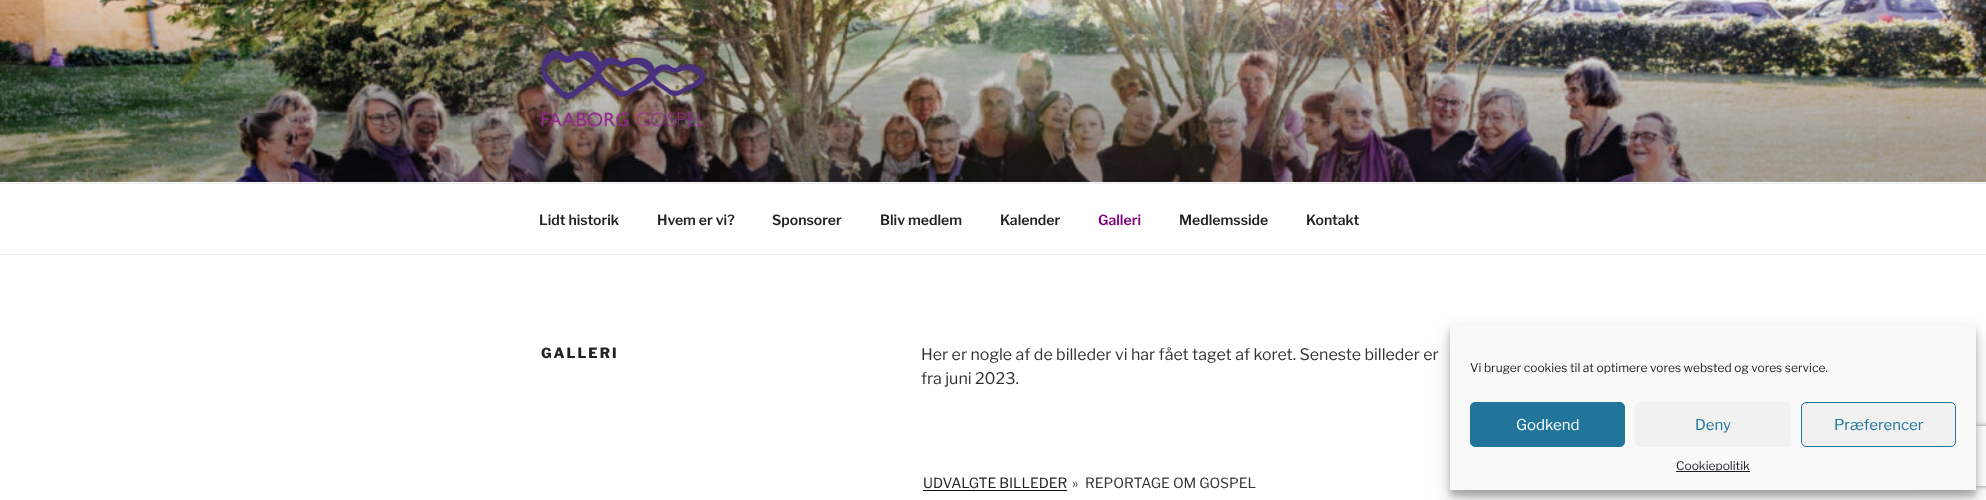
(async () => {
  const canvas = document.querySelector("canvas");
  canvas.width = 1986;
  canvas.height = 500;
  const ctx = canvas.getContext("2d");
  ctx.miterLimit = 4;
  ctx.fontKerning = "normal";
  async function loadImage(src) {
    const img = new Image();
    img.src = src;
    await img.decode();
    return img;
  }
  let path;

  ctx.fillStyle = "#ffffff";
  ctx.fillRect(0, 0, 1986, 500);
  ctx.fillStyle = "#fafafa";
  ctx.fillRect(0, 182, 1986, 1);
  ctx.drawImage(await loadImage("img/1.png"), 0, 0, 1986, 182);
  ctx.drawImage(await loadImage("img/2.png"), 541, 50, 165, 77);
  for (const [x, y, w, h, color] of [
    [0, 183, 1986, 1, "#eeeeee"],
    [0, 254, 1986, 1, "#eeeeee"],
    [923, 490, 144, 1, "#0f0f0f"],
  ]) {
    ctx.fillStyle = color;
    ctx.fillRect(x, y, w, h);
  }
  ctx.fillStyle = "rgba(0, 0, 0, 0.23)";
  ctx.filter = "blur(3px)";
  ctx.beginPath();
  ctx.rect(1450, 330, 526, 166);
  ctx.fill();
  ctx.filter = "none";
  ctx.fillStyle = "rgba(0, 0, 0, 0.19)";
  ctx.filter = "blur(10px)";
  ctx.beginPath();
  ctx.rect(1450, 334, 526, 166);
  ctx.fill();
  ctx.filter = "none";
  ctx.save();
  path = new Path2D("M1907 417H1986V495H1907ZM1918 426H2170C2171 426 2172 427 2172 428V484C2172 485 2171 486 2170 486H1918C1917 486 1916 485 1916 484V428C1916 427 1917 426 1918 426Z");
  ctx.clip(path, "evenodd");
  ctx.fillStyle = "#808080";
  ctx.filter = "blur(2.5px)";
  ctx.beginPath();
  ctx.roundRect(1916, 426, 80, 60, 2);
  ctx.fill();
  ctx.filter = "none";
  ctx.restore();
  ctx.fillStyle = "#f9f9f9";
  ctx.fillRect(1450, 324, 526, 166);
  ctx.fillStyle = "#21759b";
  ctx.beginPath();
  ctx.roundRect(1470.5, 402.5, 154, 44, 4.5);
  ctx.fill();
  ctx.strokeStyle = "#21759b";
  ctx.stroke();
  ctx.fillStyle = "#f1f1f1";
  ctx.beginPath();
  ctx.roundRect(1635, 402, 156, 45, 5);
  ctx.fill();
  ctx.beginPath();
  ctx.roundRect(1801.5, 402.5, 154, 44, 4.5);
  ctx.fill();
  ctx.stroke();
  ctx.fillStyle = "#191e23";
  ctx.fillRect(1676, 471, 74, 1);
  ctx.font = "600 14px Libre Franklin";
  ctx.fillStyle = "#222222";
  for (const [text, x, y] of [
    ["Lidt historik", 539, 225],
    ["Hvem er vi?", 657, 225],
    ["Sponsorer", 772, 225],
    ["Bliv medlem", 880, 225],
    ["Kalender", 1000, 225],
  ]) {
    ctx.fillText(text, x, y);
  }
  ctx.fillStyle = "#800080";
  ctx.fillText("Galleri", 1098, 225);
  ctx.fillStyle = "#222222";
  ctx.fillText("Medlemsside", 1179, 225);
  ctx.fillText("Kontakt", 1306, 225);
  ctx.letterSpacing = "2px";
  ctx.font = "800 14px Libre Franklin";
  ctx.fillText("GALLERI", 541, 358);
  ctx.letterSpacing = "0px";
  ctx.font = "16px Libre Franklin";
  ctx.fillStyle = "#333333";
  ctx.fillText("Her er nogle af de billeder vi har fået taget af koret. Seneste billeder er", 921, 360);
  ctx.fillText("fra juni 2023.", 921, 384);
  ctx.font = "14px Libre Franklin";
  ctx.fillStyle = "#222222";
  ctx.fillText("UDVALGTE BILLEDER", 923, 488);
  ctx.fillStyle = "#333333";
  ctx.fillText("»", 1072, 488);
  ctx.fillText("REPORTAGE OM GOSPEL", 1085, 488);
  ctx.font = "12px Libre Franklin";
  ctx.fillStyle = "#191e23";
  ctx.fillText("Vi bruger cookies til at optimere vores websted og vores service.", 1470, 372);
  ctx.font = "15px Libre Franklin";
  ctx.fillStyle = "#ffffff";
  ctx.fillText("Godkend", 1516, 430);
  ctx.fillStyle = "#21759b";
  ctx.fillText("Deny", 1695, 430);
  ctx.fillText("Præferencer", 1834, 430);
  ctx.font = "12px Libre Franklin";
  ctx.fillStyle = "#191e23";
  ctx.fillText("Cookiepolitik", 1676, 470);
})();
